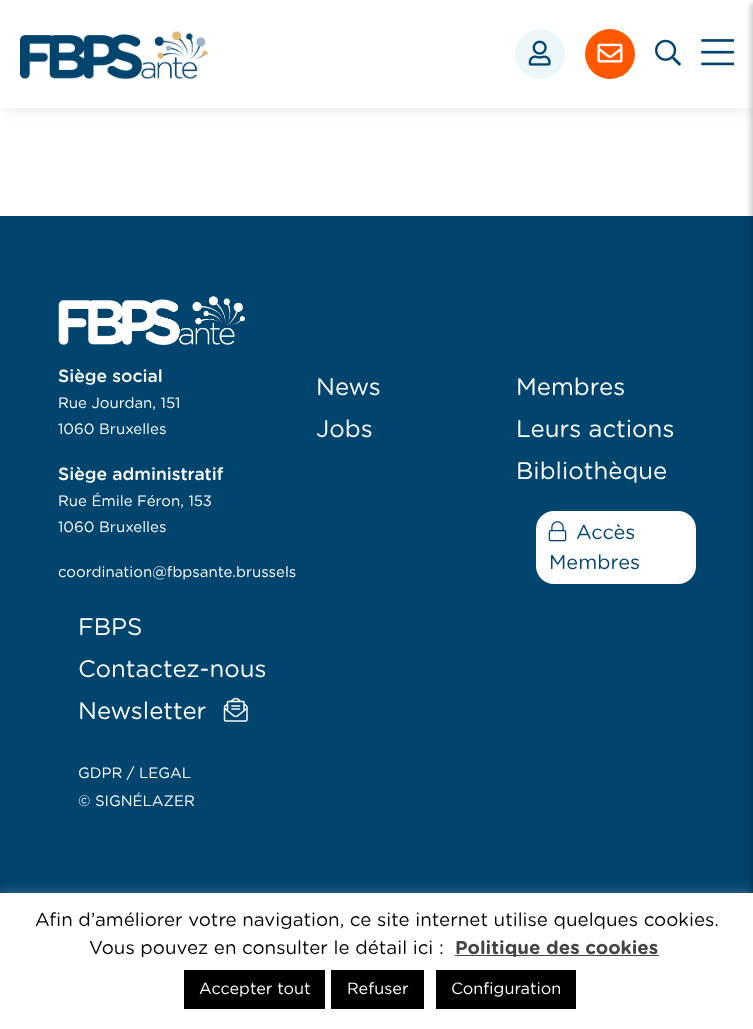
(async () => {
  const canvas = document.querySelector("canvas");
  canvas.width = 753;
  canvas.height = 1029;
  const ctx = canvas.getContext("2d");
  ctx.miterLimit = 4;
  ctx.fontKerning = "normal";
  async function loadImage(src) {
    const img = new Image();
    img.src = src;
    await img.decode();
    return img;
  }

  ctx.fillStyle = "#ffffff";
  ctx.fillRect(0, 0, 753, 1029);
  ctx.fillStyle = "rgba(0, 0, 0, 0.1)";
  ctx.filter = "blur(7px)";
  ctx.beginPath();
  ctx.rect(3, 6, 748, 103);
  ctx.fill();
  ctx.filter = "none";
  ctx.fillStyle = "#ffffff";
  ctx.fillRect(0, 0, 753, 108);
  ctx.drawImage(await loadImage("img/1.png"), 20, 31, 188, 49);
  ctx.fillStyle = "#ecf7fa";
  ctx.beginPath();
  ctx.arc(540, 54, 25, 0, Math.PI * 2);
  ctx.fill();
  ctx.drawImage(await loadImage("img/2.png"), 528, 40, 23, 26);
  ctx.fillStyle = "#ff5800";
  ctx.beginPath();
  ctx.arc(610, 54, 25, 0, Math.PI * 2);
  ctx.fill();
  ctx.drawImage(await loadImage("img/3.png"), 597, 43, 26, 20);
  ctx.drawImage(await loadImage("img/4.png"), 655, 39, 26, 27);
  ctx.drawImage(await loadImage("img/5.png"), 701, 39, 34, 27);
  ctx.fillStyle = "#01456f";
  ctx.fillRect(0, 216, 753, 677);
  ctx.fillStyle = "rgba(0, 0, 0, 0.24)";
  ctx.filter = "blur(3px)";
  ctx.beginPath();
  ctx.rect(751, 3, 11, 1025);
  ctx.fill();
  ctx.filter = "none";
  ctx.drawImage(await loadImage("img/6.png"), 58, 296, 187, 49);
  ctx.fillStyle = "#ffffff";
  ctx.beginPath();
  ctx.roundRect(536, 511, 160, 73, 18);
  ctx.fill();
  ctx.drawImage(await loadImage("img/7.png"), 548, 521, 19, 21);
  ctx.drawImage(await loadImage("img/8.png"), 223, 697, 25, 25);
  ctx.fillStyle = "rgba(172, 171, 171, 0.3)";
  ctx.filter = "blur(6px)";
  ctx.beginPath();
  ctx.rect(0, 891, 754, 138);
  ctx.fill();
  ctx.filter = "none";
  for (const [x, y, w, h, color] of [
    [0, 893, 753, 136, "#ffffff"],
    [455, 955, 204, 1, "#444444"],
    [184, 970, 141, 39, "#000000"],
    [331, 970, 93, 39, "#000000"],
    [436, 970, 140, 39, "#000000"],
  ]) {
    ctx.fillStyle = color;
    ctx.fillRect(x, y, w, h);
  }
  ctx.font = "500 17.5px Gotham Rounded";
  ctx.fillStyle = "#ffffff";
  ctx.fillText("Siège social", 58, 382);
  ctx.font = "15px Gotham Rounded";
  ctx.fillText("Rue Jourdan, 151", 58, 408);
  ctx.fillText("1060 Bruxelles", 58, 434);
  ctx.font = "500 17.5px Gotham Rounded";
  ctx.fillText("Siège administratif", 58, 480);
  ctx.font = "15px Gotham Rounded";
  for (const [text, x, y] of [
    ["Rue Émile Féron, 153", 58, 506],
    ["1060 Bruxelles", 58, 532],
    ["coordination@fbpsante.brussels", 58, 577],
  ]) {
    ctx.fillText(text, x, y);
  }
  ctx.font = "24px Gotham Rounded";
  for (const [text, x, y] of [
    ["News", 316, 395],
    ["Jobs", 316, 437],
    ["Membres", 516, 395],
    ["Leurs actions", 516, 437],
    ["Bibliothèque", 516, 479],
  ]) {
    ctx.fillText(text, x, y);
  }
  ctx.font = "20px Gotham Rounded";
  ctx.fillStyle = "#01456f";
  ctx.fillText("Accès", 576, 539);
  ctx.fillText("Membres", 549, 569);
  ctx.font = "24px Gotham Rounded";
  ctx.fillStyle = "#ffffff";
  for (const [text, x, y] of [
    ["FBPS", 78, 635],
    ["Contactez-nous", 78, 677],
    ["Newsletter", 78, 719],
  ]) {
    ctx.fillText(text, x, y);
  }
  ctx.font = "15px Gotham Rounded";
  ctx.fillText("GDPR / LEGAL", 78, 778);
  ctx.fillText("© SIGNÉLAZER", 78, 806);
  ctx.font = "18.75px Gotham Rounded";
  ctx.fillStyle = "#000000";
  ctx.fillText("Afin d’améliorer votre navigation, ce site internet utilise quelques cookies.", 35, 926);
  ctx.fillText("Vous pouvez en consulter le détail ici :", 89, 954);
  ctx.font = "bold 18.75px Gotham Rounded";
  ctx.fillStyle = "#444444";
  ctx.fillText("Politique des cookies", 455, 954);
  ctx.font = "16.25px Gotham Rounded";
  ctx.fillStyle = "#ffffff";
  for (const [text, x, y] of [
    ["Accepter tout", 199, 994],
    ["Refuser", 347, 994],
    ["Configuration", 451, 994],
  ]) {
    ctx.fillText(text, x, y);
  }
})();
